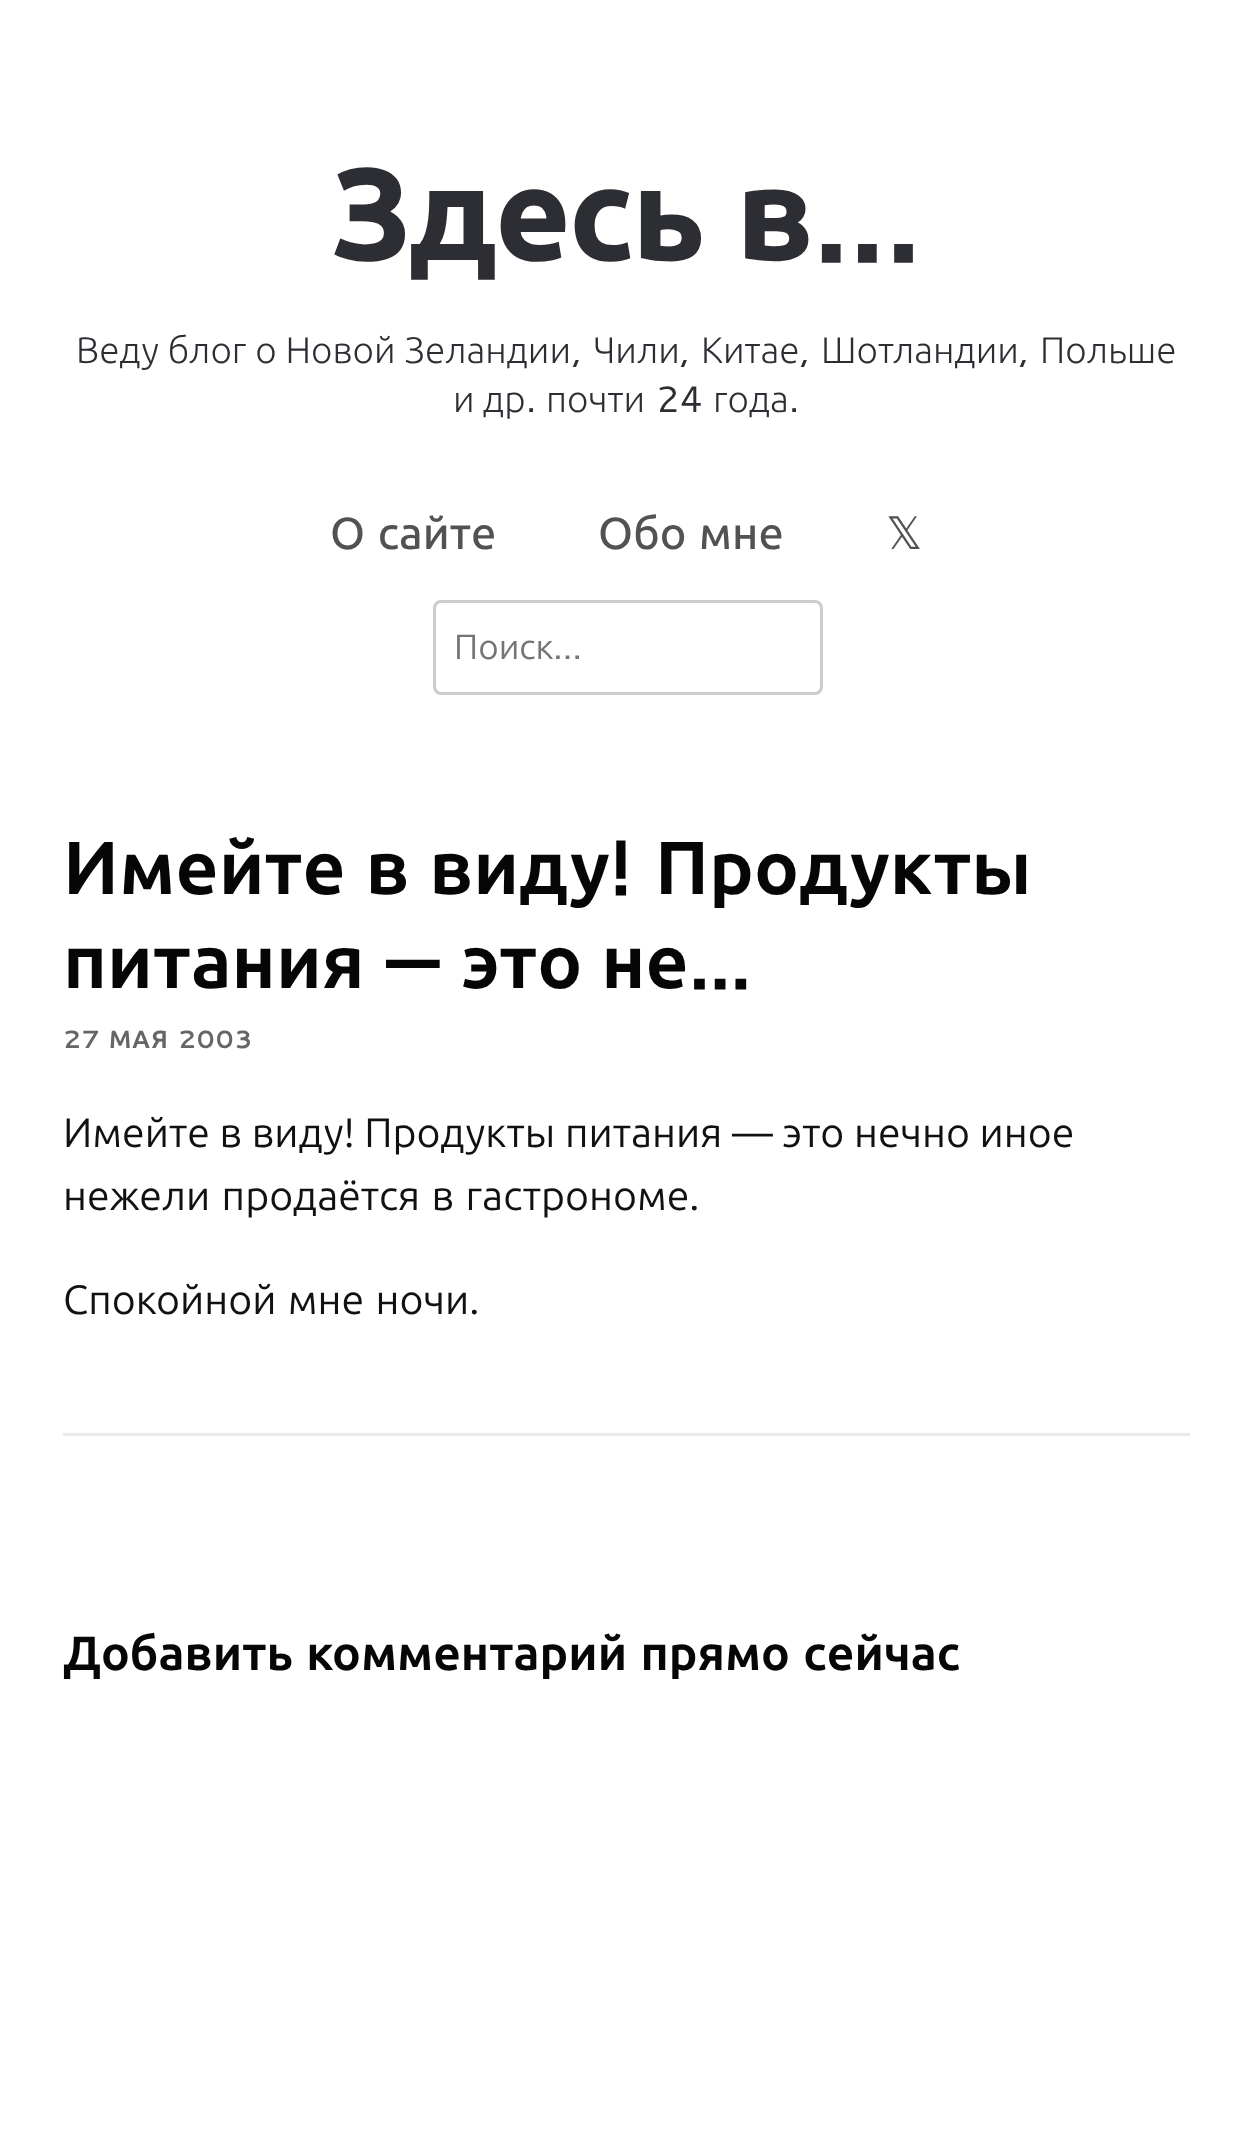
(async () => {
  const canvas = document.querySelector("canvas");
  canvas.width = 1252;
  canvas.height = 2133;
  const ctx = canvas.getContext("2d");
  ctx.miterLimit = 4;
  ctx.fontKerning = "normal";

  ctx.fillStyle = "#ffffff";
  ctx.fillRect(0, 0, 1252, 2133);
  ctx.beginPath();
  ctx.roundRect(434.5, 601.5, 387, 92, 6.5);
  ctx.strokeStyle = "#cccccc";
  ctx.lineWidth = 3;
  ctx.stroke();
  ctx.fillStyle = "#eaeaea";
  ctx.fillRect(63, 1433, 1127, 3);
  ctx.letterSpacing = "-2.5px";
  ctx.wordSpacing = "4px";
  ctx.font = "800 131px Ubuntu";
  ctx.fillStyle = "#2d2e33";
  ctx.fillText("Здесь в", 331, 260);
  ctx.wordSpacing = "0px";
  ctx.font = "bold 131px Cantarell";
  ctx.fillText("…", 813, 260);
  ctx.letterSpacing = "0px";
  ctx.wordSpacing = "0.5px";
  ctx.font = "300 36.9px Ubuntu";
  ctx.fillText("Веду блог о Новой Зеландии", 76, 363);
  ctx.wordSpacing = "0px";
  ctx.font = "36.9px Cantarell";
  ctx.fillText(",", 572, 363);
  ctx.font = "300 36.9px Ubuntu";
  ctx.fillText("Чили", 593, 363);
  ctx.font = "36.9px Cantarell";
  ctx.fillText(",", 680, 363);
  ctx.font = "300 36.9px Ubuntu";
  ctx.fillText("Китае", 701, 363);
  ctx.font = "36.9px Cantarell";
  ctx.fillText(",", 800, 363);
  ctx.font = "300 36.9px Ubuntu";
  ctx.fillText("Шотландии", 821, 363);
  ctx.font = "36.9px Cantarell";
  ctx.fillText(",", 1019, 363);
  ctx.font = "300 36.9px Ubuntu";
  ctx.fillText("Польше", 1040, 363);
  ctx.fillText("и др", 453, 412);
  ctx.font = "36.9px Cantarell";
  ctx.fillText(".", 526, 412);
  ctx.font = "300 36.9px Ubuntu";
  ctx.fillText("почти", 546, 412);
  ctx.font = "36.9px Cantarell";
  ctx.fillText("24", 656, 412);
  ctx.font = "300 36.9px Ubuntu";
  ctx.fillText("года", 713, 412);
  ctx.font = "36.9px Cantarell";
  ctx.fillText(".", 789, 412);
  ctx.wordSpacing = "2px";
  ctx.font = "500 45px Ubuntu";
  ctx.fillStyle = "#525252";
  ctx.fillText("О сайте", 330, 549);
  ctx.fillText("Обо мне", 598, 549);
  ctx.wordSpacing = "0px";
  ctx.font = "45px DejaVu Sans";
  ctx.fillText("𝕏", 886, 549);
  ctx.font = "35px Ubuntu";
  ctx.fillStyle = "#757575";
  ctx.fillText("Поиск", 454, 659);
  ctx.font = "35px Cantarell";
  ctx.fillText("…", 553, 659);
  ctx.wordSpacing = "2px";
  ctx.font = "bold 75px Ubuntu";
  ctx.fillStyle = "#060606";
  ctx.fillText("Имейте в виду", 63, 894);
  ctx.wordSpacing = "0px";
  ctx.font = "bold 75px Cantarell";
  ctx.fillText("!", 609, 894);
  ctx.font = "bold 75px Ubuntu";
  ctx.fillText("Продукты", 655, 894);
  ctx.fillText("питания", 63, 988);
  ctx.font = "bold 75px Cantarell";
  ctx.fillText("—", 386, 988);
  ctx.wordSpacing = "1px";
  ctx.font = "bold 75px Ubuntu";
  ctx.fillText("это не", 461, 988);
  ctx.wordSpacing = "0px";
  ctx.font = "bold 75px Cantarell";
  ctx.fillText("…", 689, 988);
  ctx.letterSpacing = "1px";
  ctx.font = "bold 25px Cantarell";
  ctx.fillStyle = "#666666";
  ctx.fillText("27", 63, 1048);
  ctx.font = "bold 25px Ubuntu";
  ctx.fillText("МАЯ", 109, 1048);
  ctx.font = "bold 25px Cantarell";
  ctx.fillText("2003", 178, 1048);
  ctx.letterSpacing = "0px";
  ctx.wordSpacing = "0.25px";
  ctx.font = "41px Ubuntu";
  ctx.fillStyle = "#111111";
  ctx.fillText("Имейте в виду! Продукты питания — это нечно иное", 63, 1147);
  ctx.wordSpacing = "2px";
  ctx.fillText("нежели продаётся в гастрономе.", 63, 1210);
  ctx.fillText("Спокойной мне ночи.", 63, 1314);
  ctx.font = "bold 48px Ubuntu";
  ctx.fillStyle = "#060606";
  ctx.fillText("Добавить комментарий прямо сейчас", 63, 1670);
})();
